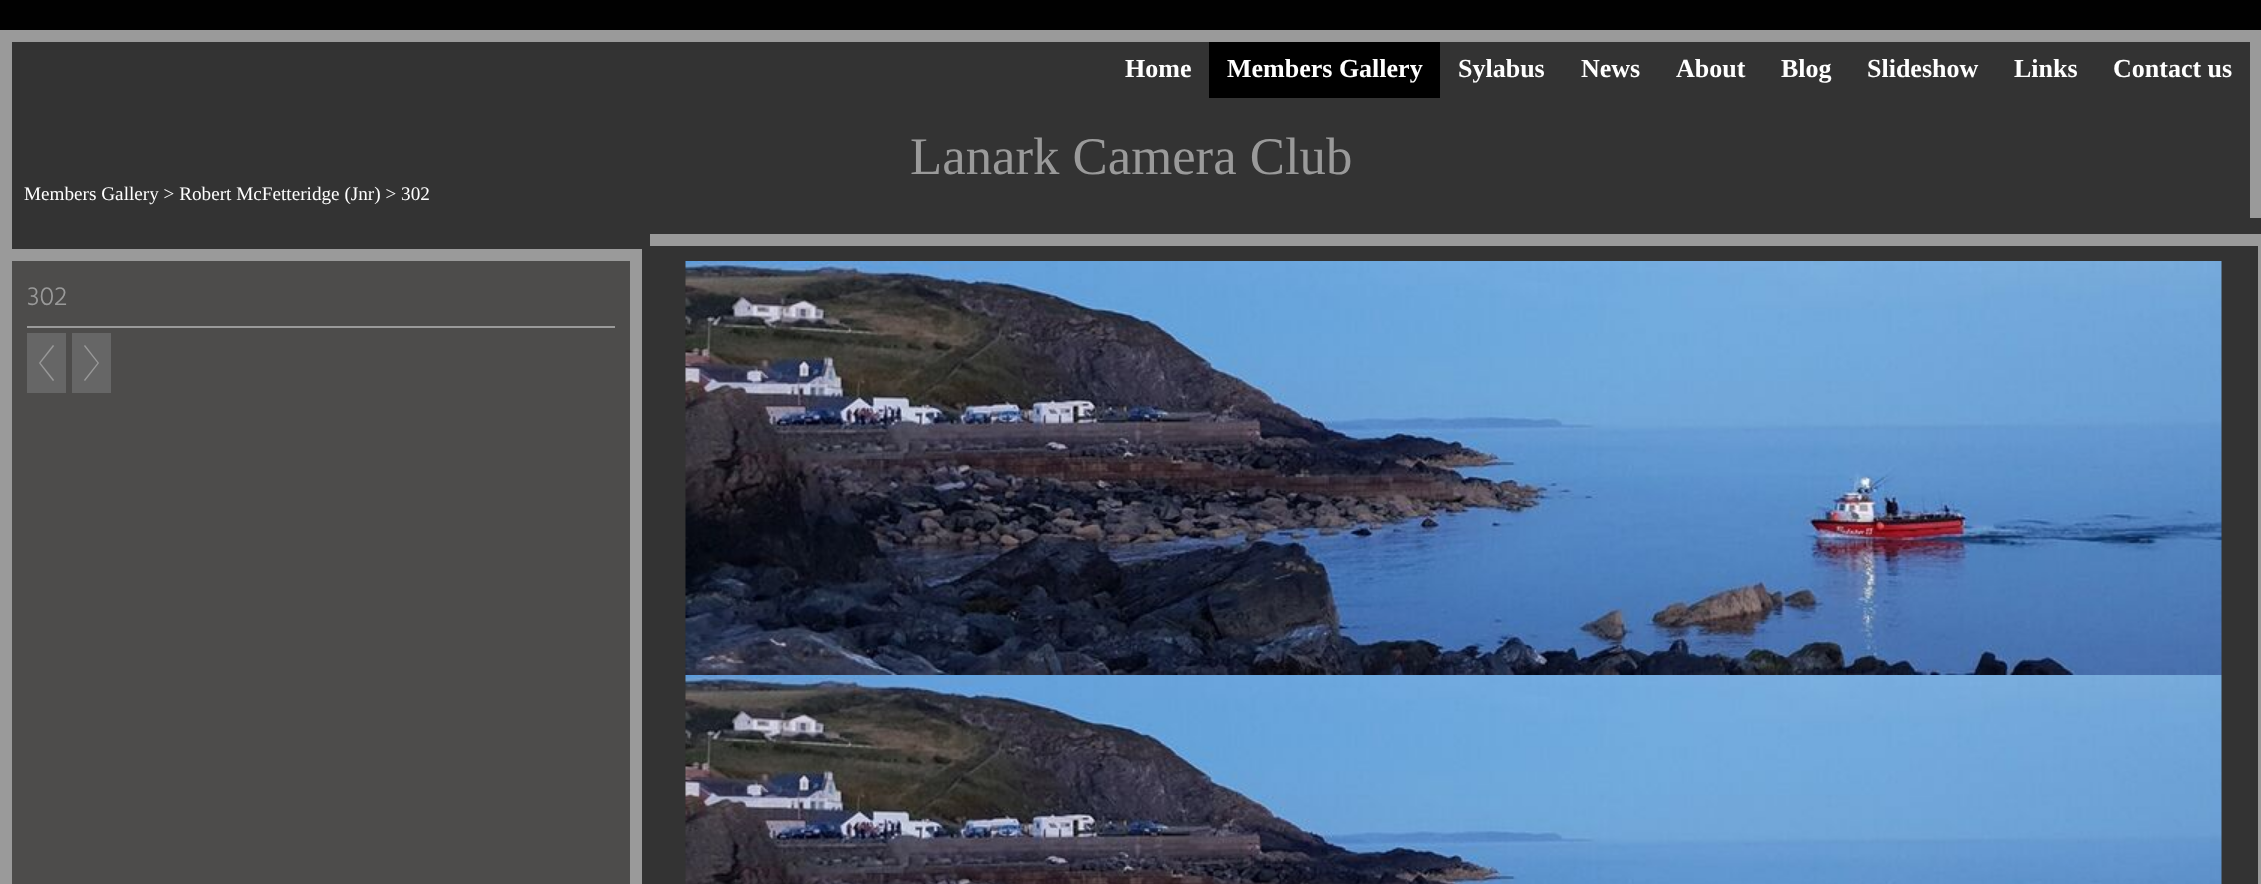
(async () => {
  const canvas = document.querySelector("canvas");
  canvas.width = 2261;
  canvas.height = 884;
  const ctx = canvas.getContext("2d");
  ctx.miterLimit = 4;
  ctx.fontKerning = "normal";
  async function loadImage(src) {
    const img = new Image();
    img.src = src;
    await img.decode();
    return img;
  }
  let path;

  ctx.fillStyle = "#010101";
  ctx.fillRect(0, 0, 2261, 884);
  for (const [x, y, w, h, color] of [
    [12, 42, 2238, 176, "#333333"],
    [12, 30, 2238, 12, "#9a9a9a"],
    [2250, 30, 11, 188, "#9a9a9a"],
    [0, 30, 12, 854, "#9a9a9a"],
    [1209, 42, 231, 56, "#000000"],
    [12, 218, 2249, 666, "#333333"],
    [12, 261, 618, 623, "#4d4c4b"],
    [12, 249, 618, 12, "#9a9a9a"],
    [630, 249, 12, 635, "#9a9a9a"],
    [27, 326, 588, 2, "#9a9a9a"],
    [27, 333, 39, 60, "#666666"],
  ]) {
    ctx.fillStyle = color;
    ctx.fillRect(x, y, w, h);
  }
  ctx.fillStyle = "#9a9a9a";
  path = new Path2D("M53 381L39 363L53 345L54 346L40.5 363L54 380Z");
  ctx.fill(path);
  ctx.strokeStyle = "#9a9a9a";
  ctx.lineWidth = 0.2;
  ctx.stroke(path);
  ctx.fillStyle = "#666666";
  ctx.fillRect(72, 333, 39, 60);
  ctx.fillStyle = "#9a9a9a";
  path = new Path2D("M85 381L84 380L97.5 363L84 346L85 345L99 363Z");
  ctx.fill(path);
  ctx.lineWidth = 0.1;
  ctx.stroke(path);
  ctx.fillRect(650, 234, 1608, 12);
  ctx.fillRect(2258, 234, 3, 650);
  ctx.drawImage(await loadImage("img/1.png"), 685, 261, 1537, 414);
  ctx.drawImage(await loadImage("img/2.png"), 685, 675, 1537, 209);
  ctx.font = "bold 26px Liberation Serif";
  ctx.fillStyle = "#ffffff";
  for (const [text, x, y] of [
    ["Home", 1125, 77],
    ["Members Gallery", 1227, 77],
    ["Sylabus", 1458, 77],
    ["News", 1581, 77],
    ["About", 1676, 77],
    ["Blog", 1781, 77],
    ["Slideshow", 1867, 77],
    ["Links", 2014, 77],
    ["Contact us", 2113, 77],
  ]) {
    ctx.fillText(text, x, y);
  }
  ctx.font = "52.75px Liberation Serif";
  ctx.fillStyle = "#9a9a9a";
  ctx.fillText("Lanark Camera Club", 910, 174);
  ctx.font = "19.2px Liberation Serif";
  ctx.fillStyle = "#ffffff";
  ctx.fillText("Members Gallery > Robert McFetteridge (Jnr) > 302", 24, 200);
  ctx.font = "300 27px Hind";
  ctx.fillStyle = "#9a9a9a";
  ctx.fillText("302", 27, 305);
})();
